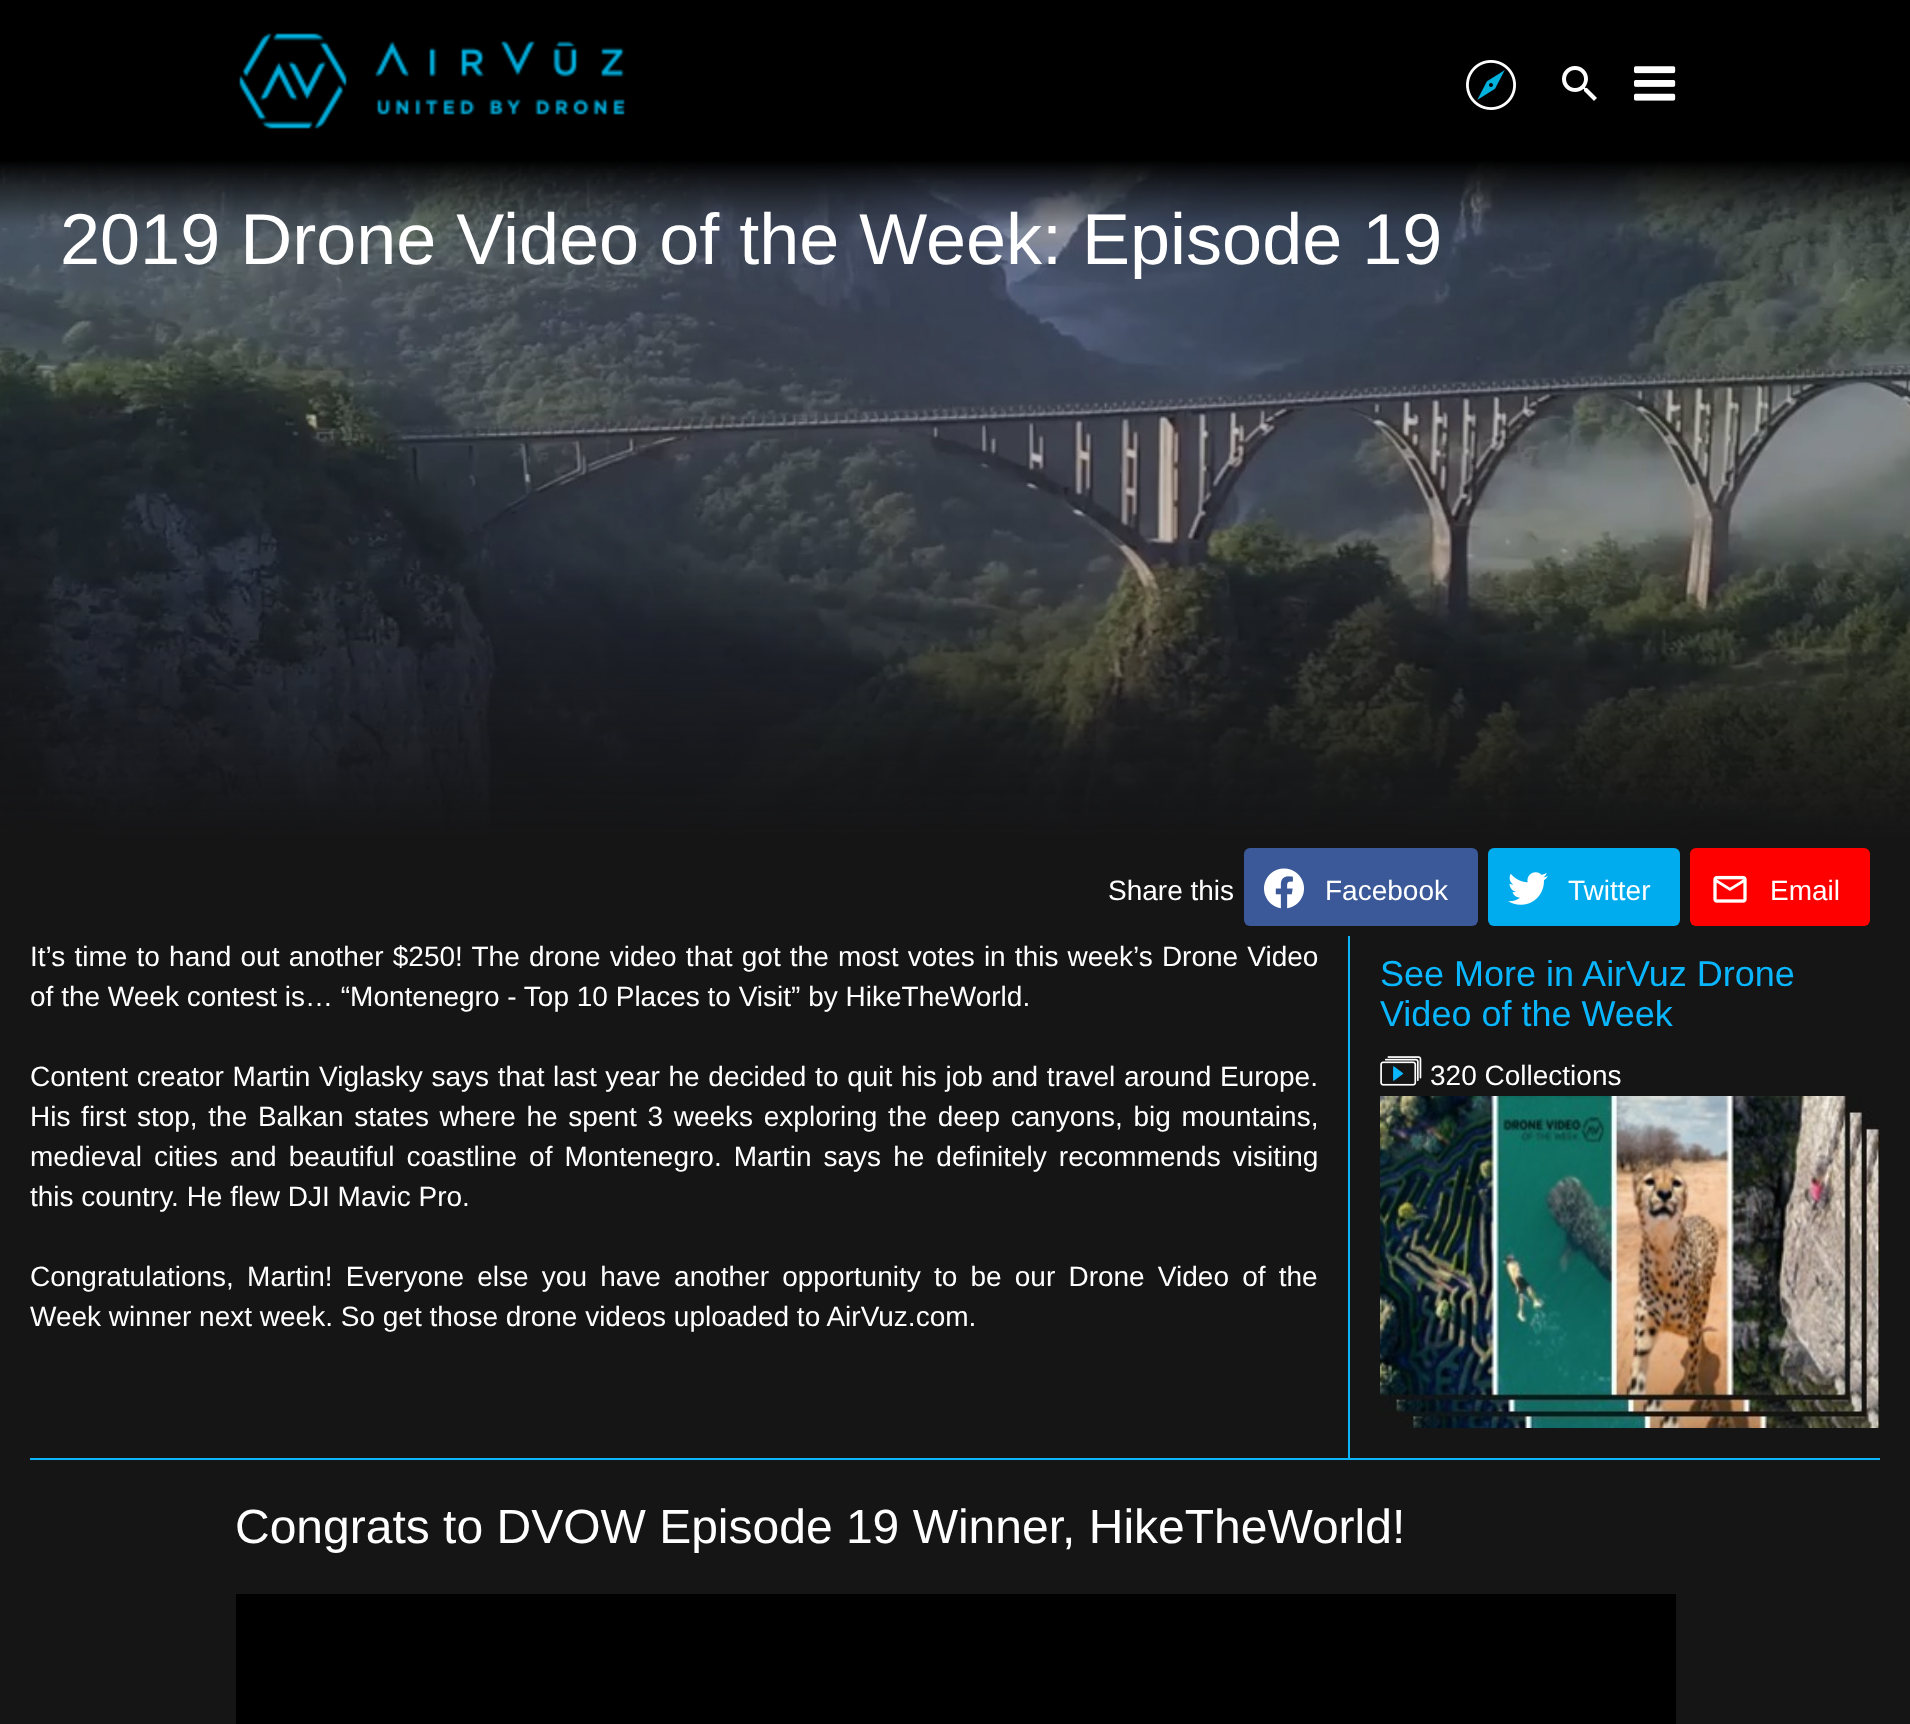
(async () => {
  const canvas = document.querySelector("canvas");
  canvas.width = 1910;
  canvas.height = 1724;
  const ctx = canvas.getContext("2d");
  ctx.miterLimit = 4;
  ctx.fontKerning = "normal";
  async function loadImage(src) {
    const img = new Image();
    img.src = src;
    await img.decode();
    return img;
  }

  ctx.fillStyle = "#151516";
  ctx.fillRect(0, 0, 1910, 1724);
  ctx.fillStyle = "#000000";
  ctx.fillRect(0, 0, 1910, 160);
  ctx.drawImage(await loadImage("img/1.png"), 239, 33, 386, 96);
  ctx.drawImage(await loadImage("img/2.png"), 1466, 60, 50, 50);
  ctx.drawImage(await loadImage("img/3.png"), 1562, 66, 35, 35);
  ctx.drawImage(await loadImage("img/4.png"), 1634, 66, 42, 35);
  ctx.drawImage(await loadImage("img/5.png"), 0, 160, 1910, 678);
  ctx.fillStyle = "#3b5998";
  ctx.beginPath();
  ctx.roundRect(1244, 848, 234, 78, 6);
  ctx.fill();
  ctx.drawImage(await loadImage("img/6.png"), 1264, 868, 40, 41);
  ctx.fillStyle = "#00aced";
  ctx.beginPath();
  ctx.roundRect(1488, 848, 192, 78, 6);
  ctx.fill();
  ctx.drawImage(await loadImage("img/7.png"), 1508, 872, 40, 33);
  ctx.fillStyle = "#ff0000";
  ctx.beginPath();
  ctx.roundRect(1690, 848, 180, 78, 6);
  ctx.fill();
  ctx.drawImage(await loadImage("img/8.png"), 1713, 875, 34, 28);
  ctx.fillStyle = "#0ab7ff";
  ctx.fillRect(1348, 936, 2, 522);
  ctx.drawImage(await loadImage("img/9.png"), 1380, 1056, 42, 30);
  ctx.drawImage(await loadImage("img/10.png"), 1380, 1096, 500, 332);
  ctx.fillRect(30, 1458, 1850, 2);
  ctx.fillStyle = "#000000";
  ctx.fillRect(236, 1594, 1440, 130);
  ctx.font = "72px Liberation Sans";
  ctx.fillStyle = "#ffffff";
  ctx.fillText("2019 Drone Video of the Week: Episode 19", 60, 264);
  ctx.font = "28px Liberation Sans";
  for (const [text, x, y] of [
    ["Share this", 1108, 900],
    ["Facebook", 1325, 900],
    ["Twitter", 1568, 900],
    ["Email", 1770, 900],
  ]) {
    ctx.fillText(text, x, y);
  }
  ctx.wordSpacing = "1.4px";
  ctx.fillText("It’s time to hand out another $250! The drone video that got the most votes in this week’s Drone Video", 30, 966);
  ctx.wordSpacing = "0px";
  ctx.fillText("of the Week contest is… “Montenegro - Top 10 Places to Visit” by HikeTheWorld.", 30, 1006);
  ctx.wordSpacing = "0.9px";
  ctx.fillText("Content creator Martin Viglasky says that last year he decided to quit his job and travel around Europe.", 30, 1086);
  ctx.wordSpacing = "2.9px";
  ctx.fillText("His first stop, the Balkan states where he spent 3 weeks exploring the deep canyons, big mountains,", 30, 1126);
  ctx.wordSpacing = "4.25px";
  ctx.fillText("medieval cities and beautiful coastline of Montenegro. Martin says he definitely recommends visiting", 30, 1166);
  ctx.wordSpacing = "0px";
  ctx.fillText("this country. He flew DJI Mavic Pro.", 30, 1206);
  ctx.wordSpacing = "5.4px";
  ctx.fillText("Congratulations, Martin! Everyone else you have another opportunity to be our Drone Video of the", 30, 1286);
  ctx.wordSpacing = "0px";
  ctx.fillText("Week winner next week. So get those drone videos uploaded to AirVuz.com.", 30, 1326);
  ctx.font = "36px Liberation Sans";
  ctx.fillStyle = "#0ab7ff";
  ctx.fillText("See More in AirVuz Drone", 1380, 986);
  ctx.fillText("Video of the Week", 1380, 1026);
  ctx.font = "28px Liberation Sans";
  ctx.fillStyle = "#ffffff";
  ctx.fillText("320 Collections", 1430, 1085);
  ctx.font = "48px Liberation Sans";
  ctx.fillText("Congrats to DVOW Episode 19 Winner, HikeTheWorld!", 235, 1543);
})();
